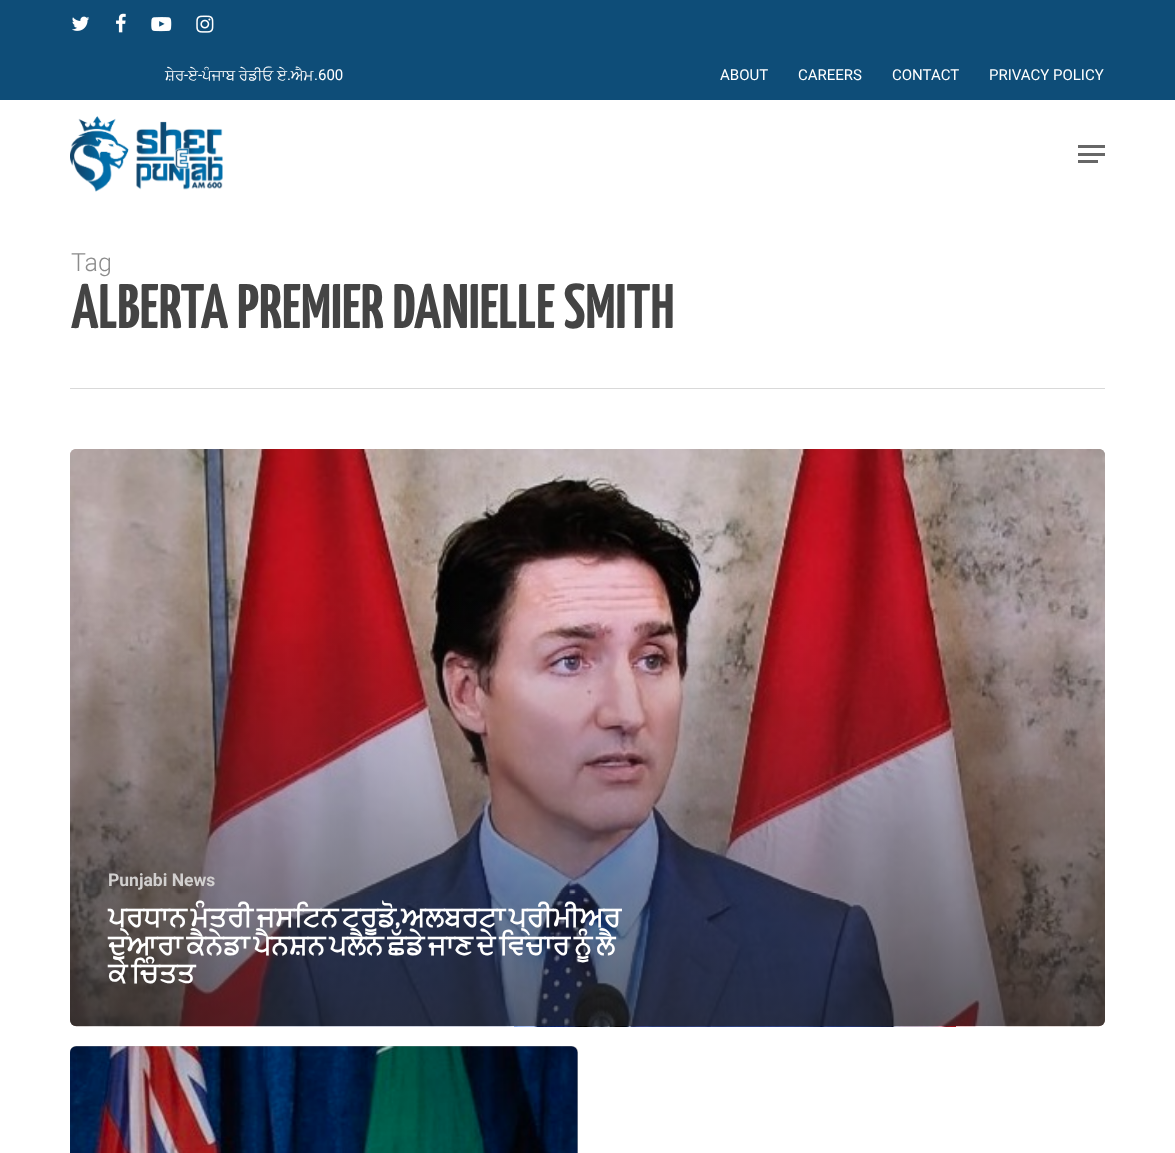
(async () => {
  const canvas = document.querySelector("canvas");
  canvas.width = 1175;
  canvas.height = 1153;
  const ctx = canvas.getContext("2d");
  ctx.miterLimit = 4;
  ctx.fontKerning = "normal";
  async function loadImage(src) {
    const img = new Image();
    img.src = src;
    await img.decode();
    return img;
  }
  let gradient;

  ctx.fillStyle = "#ffffff";
  ctx.fillRect(0, 0, 1175, 1153);
  ctx.fillStyle = "#0e4d78";
  ctx.fillRect(0, 0, 1175, 100);
  ctx.drawImage(await loadImage("img/1.png"), 72, 16, 18, 15);
  ctx.drawImage(await loadImage("img/2.png"), 116, 13, 10, 20);
  ctx.drawImage(await loadImage("img/3.png"), 151, 17, 21, 15);
  ctx.drawImage(await loadImage("img/4.png"), 196, 15, 18, 18);
  ctx.drawImage(await loadImage("img/5.png"), 70, 116, 153, 76);
  for (const [x, y, w, h, color] of [
    [1078, 145, 27, 3, "#676767"],
    [1078, 160, 20, 3, "#676767"],
    [1078, 153, 27, 3, "#676767"],
    [70, 388, 1035, 1, "#d9d9d9"],
  ]) {
    ctx.fillStyle = color;
    ctx.fillRect(x, y, w, h);
  }
  ctx.drawImage(await loadImage("img/6.png"), 70, 449, 1035, 578);
  gradient = ctx.createLinearGradient(590, 594, 590, 1029);
  gradient.addColorStop(0, "rgba(35, 35, 35, 0)");
  gradient.addColorStop(1, "rgba(35, 35, 35, 0.65)");
  ctx.fillStyle = gradient;
  ctx.beginPath();
  ctx.roundRect(70, 594, 1035, 432, [0, 0, 6, 6]);
  ctx.fill();
  ctx.fillStyle = "#b3b3b3";
  ctx.beginPath();
  ctx.roundRect(70, 1046, 508, 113, 6);
  ctx.fill();
  ctx.drawImage(await loadImage("img/7.png"), 70, 1046, 508, 107);
  ctx.font = "15px FreeSans";
  ctx.fillStyle = "#ffffff";
  ctx.fillText("ਸ਼ੇਰ", 165, 80);
  ctx.font = "15px Roboto";
  ctx.fillText("-", 184, 80);
  ctx.font = "15px FreeSans";
  ctx.fillText("ਏ", 188, 80);
  ctx.font = "15px Roboto";
  ctx.fillText(".600", 314, 80);
  ctx.fillText("-", 198, 80);
  ctx.font = "15px FreeSans";
  ctx.fillText("ਪੰਜਾਬ ਰੇਡੀਓ ਏ ਐਮ", 202, 80);
  ctx.font = "15px Roboto";
  for (const [text, x, y] of [
    [".", 287, 80],
    ["ABOUT", 720, 80],
    ["CAREERS", 798, 80],
    ["CONTACT", 892, 80],
    ["PRIVACY POLICY", 989, 80],
  ]) {
    ctx.fillText(text, x, y);
  }
  ctx.font = "300 25px Roboto";
  ctx.fillStyle = "#8c8c8c";
  ctx.fillText("Tag", 71, 271);
  ctx.font = "bold 63px Yanone Kaffeesatz";
  ctx.fillStyle = "#444444";
  ctx.fillText("ALBERTA PREMIER DANIELLE SMITH", 71, 328);
  ctx.font = "bold 17.5px Roboto";
  ctx.fillStyle = "#d2d0cf";
  ctx.fillText("Punjabi News", 108, 886);
  ctx.wordSpacing = "-3px";
  ctx.font = "bold 28px FreeSans";
  ctx.fillStyle = "#ffffff";
  ctx.fillText("ਪ੍ਰਧਾਨ ਮੰਤਰੀ ਜਸਟਿਨ ਟਰੂਡੋ", 108, 926);
  ctx.wordSpacing = "0px";
  ctx.font = "bold 28px Yanone Kaffeesatz";
  ctx.fillText(",", 395, 926);
  ctx.wordSpacing = "-3px";
  ctx.font = "bold 28px FreeSans";
  for (const [text, x, y] of [
    ["ਅਲਬਰਟਾ ਪ੍ਰੀਮੀਅਰ", 401, 926],
    ["ਦੁਆਰਾ ਕੈਨੇਡਾ ਪੈਨਸ਼ਨ ਪਲੈਨ ਛੱਡੇ ਜਾਣ ਦੇ ਵਿਚਾਰ ਨੂੰ ਲੈ", 108, 954],
    ["ਕੇ ਚਿੰਤਤ", 108, 982],
  ]) {
    ctx.fillText(text, x, y);
  }
})();
